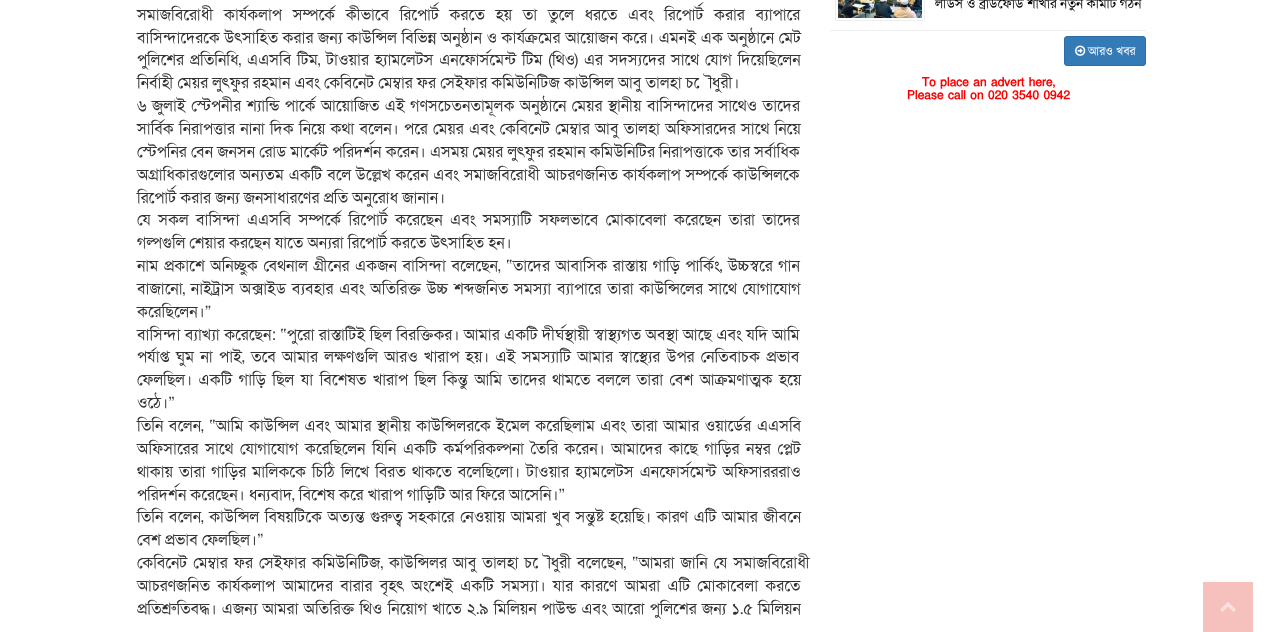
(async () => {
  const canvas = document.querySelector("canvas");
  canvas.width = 1283;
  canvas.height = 632;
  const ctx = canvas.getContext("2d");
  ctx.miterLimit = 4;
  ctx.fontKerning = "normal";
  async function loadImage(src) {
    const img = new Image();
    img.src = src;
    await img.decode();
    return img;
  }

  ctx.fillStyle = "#ffffff";
  ctx.fillRect(0, 0, 1283, 632);
  ctx.fillStyle = "#eeeeee";
  ctx.fillRect(830, 30, 316, 1);
  ctx.strokeStyle = "#eeeeee";
  ctx.strokeRect(835.5, -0.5, 89, 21);
  ctx.drawImage(await loadImage("img/1.png"), 838, 0, 84, 18);
  ctx.fillStyle = "#337ab7";
  ctx.beginPath();
  ctx.roundRect(1064.5, 36.5, 81, 29, 2.5);
  ctx.fill();
  ctx.strokeStyle = "#2e6da4";
  ctx.stroke();
  ctx.drawImage(await loadImage("img/2.png"), 1075, 45, 11, 11);
  ctx.fillStyle = "#f6c1bc";
  ctx.fillRect(1203, 582, 50, 50);
  ctx.drawImage(await loadImage("img/3.png"), 1220, 602, 16, 10);
  ctx.wordSpacing = "6.6px";
  ctx.font = "16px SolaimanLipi";
  ctx.fillStyle = "#333333";
  ctx.fillText("সমাজবিরোধী কার্যকলাপ সম্পর্কে কীভাবে রিপোর্ট করতে হয় তা তুলে ধরতে এবং রিপোর্ট করার ব্যাপারে", 137, 20);
  ctx.wordSpacing = "0.5px";
  ctx.fillText("বাসিন্দাদেরকে উৎসাহিত করার জন্য কাউন্সিল বিভিন্ন অনুষ্ঠান ও কার্যক্রমের আয়োজন করে। এমনই এক অনুষ্ঠানে মেট", 137, 43);
  ctx.wordSpacing = "1.75px";
  ctx.fillText("পুলিশের প্রতিনিধি, এএসবি টিম, টাওয়ার হ্যামলেটস এনফোর্সমেন্ট টিম (থিও) এর সদস্যদের সাথে যোগ দিয়েছিলেন", 137, 65);
  ctx.wordSpacing = "0px";
  ctx.fillText("নির্বাহী মেয়র লুৎফুর রহমান এবং কেবিনেট মেম্বার ফর সেইফার কমিউনিটিজ কাউন্সিল আবু তালহা চৌধুরী।", 137, 88);
  ctx.wordSpacing = "1.3px";
  ctx.fillText("৬ জুলাই স্টেপনীর শ্যান্ডি পার্কে আয়োজিত এই গণসচেতনতামূলক অনুষ্ঠানে মেয়র স্থানীয় বাসিন্দাদের সাথেও তাদের", 137, 111);
  ctx.wordSpacing = "1.2px";
  ctx.fillText("সার্বিক নিরাপত্তার নানা দিক নিয়ে কথা বলেন। পরে মেয়র এবং কেবিনেট মেম্বার আবু তালহা অফিসারদের সাথে নিয়ে", 137, 134);
  ctx.wordSpacing = "0.1px";
  ctx.fillText("স্টেপনির বেন জনসন রোড মার্কেট পরিদর্শন করেন। এসময় মেয়র লুৎফুর রহমান কমিউনিটির নিরাপত্তাকে তার সর্বাধিক", 137, 157);
  ctx.wordSpacing = "0.75px";
  ctx.fillText("অগ্রাধিকারগুলোর অন্যতম একটি বলে উল্লেখ করেন এবং সমাজবিরোধী আচরণজনিত কার্যকলাপ সম্পর্কে কাউন্সিলকে", 137, 180);
  ctx.wordSpacing = "0px";
  ctx.fillText("রিপোর্ট করার জন্য জনসাধারণের প্রতি অনুরোধ জানান।", 137, 203);
  ctx.wordSpacing = "3.4px";
  ctx.fillText("যে সকল বাসিন্দা এএসবি সম্পর্কে রিপোর্ট করেছেন এবং সমস্যাটি সফলভাবে মোকাবেলা করেছেন তারা তাদের", 137, 225);
  ctx.wordSpacing = "0px";
  ctx.fillText("গল্পগুলি শেয়ার করছেন যাতে অন্যরা রিপোর্ট করতে উৎসাহিত হন।", 137, 248);
  ctx.wordSpacing = "1.5px";
  ctx.fillText("নাম প্রকাশে অনিচ্ছুক বেথনাল গ্রীনের একজন বাসিন্দা বলেছেন, “তাদের আবাসিক রাস্তায় গাড়ি পার্কিং, উচ্চস্বরে গান", 137, 271);
  ctx.wordSpacing = "1.6px";
  ctx.fillText("বাজানো, নাইট্রাস অক্সাইড ব্যবহার এবং অতিরিক্ত উচ্চ শব্দজনিত সমস্যা ব্যাপারে তারা কাউন্সিলের সাথে যোগাযোগ", 137, 294);
  ctx.wordSpacing = "0px";
  ctx.fillText("করেছিলেন।”", 137, 317);
  ctx.wordSpacing = "0.3px";
  ctx.fillText("বাসিন্দা ব্যাখ্যা করেছেন: “পুরো রাস্তাটিই ছিল বিরক্তিকর। আমার একটি দীর্ঘস্থায়ী স্বাস্থ্যগত অবস্থা আছে এবং যদি আমি", 137, 340);
  ctx.wordSpacing = "2.25px";
  ctx.fillText("পর্যাপ্ত ঘুম না পাই, তবে আমার লক্ষণগুলি আরও খারাপ হয়। এই সমস্যাটি আমার স্বাস্থ্যের উপর নেতিবাচক প্রভাব", 137, 362);
  ctx.wordSpacing = "2.4px";
  ctx.fillText("ফেলছিল। একটি গাড়ি ছিল যা বিশেষত খারাপ ছিল কিন্তু আমি তাদের থামতে বললে তারা বেশ আক্রমণাত্মক হয়ে", 137, 385);
  ctx.wordSpacing = "0px";
  ctx.fillText("ওঠে।”", 137, 408);
  ctx.wordSpacing = "1.5px";
  ctx.fillText("তিনি বলেন, “আমি কাউন্সিল এবং আমার স্থানীয় কাউন্সিলরকে ইমেল করেছিলাম এবং তারা আমার ওয়ার্ডের এএসবি", 137, 431);
  ctx.wordSpacing = "2.6px";
  ctx.fillText("অফিসারের সাথে যোগাযোগ করেছিলেন যিনি একটি কর্মপরিকল্পনা তৈরি করেন। আমাদের কাছে গাড়ির নম্বর প্লেট", 137, 454);
  ctx.wordSpacing = "1.9px";
  ctx.fillText("থাকায় তারা গাড়ির মালিককে চিঠি লিখে বিরত থাকতে বলেছিলো। টাওয়ার হ্যামলেটস এনফোর্সমেন্ট অফিসারররাও", 137, 477);
  ctx.wordSpacing = "0px";
  ctx.fillText("পরিদর্শন করেছেন। ধন্যবাদ, বিশেষ করে খারাপ গাড়িটি আর ফিরে আসেনি।”", 137, 500);
  ctx.wordSpacing = "1.5px";
  ctx.fillText("তিনি বলেন, কাউন্সিল বিষয়টিকে অত্যন্ত গুরুত্ব সহকারে নেওয়ায় আমরা খুব সন্তুষ্ট হয়েছি। কারণ এটি আমার জীবনে", 137, 522);
  ctx.wordSpacing = "0px";
  ctx.fillText("বেশ প্রভাব ফেলছিল।”", 137, 545);
  ctx.wordSpacing = "1.9px";
  ctx.fillText("কেবিনেট মেম্বার ফর সেইফার কমিউনিটিজ, কাউন্সিলর আবু তালহা চৌধুরী বলেছেন, “আমরা জানি যে সমাজবিরোধী", 137, 568);
  ctx.wordSpacing = "3.1px";
  ctx.fillText("আচরণজনিত কার্যকলাপ আমাদের বারার বৃহৎ অংশেই একটি সমস্যা। যার কারণে আমরা এটি মোকাবেলা করতে", 137, 591);
  ctx.wordSpacing = "1.1px";
  ctx.fillText("প্রতিশ্রুতিবদ্ধ। এজন্য আমরা অতিরিক্ত থিও নিয়োগ খাতে ২.৯ মিলিয়ন পাউন্ড এবং আরো পুলিশের জন্য ১.৫ মিলিয়ন", 137, 614);
  ctx.wordSpacing = "0px";
  ctx.font = "13.5px SolaimanLipi";
  ctx.fillStyle = "#000000";
  ctx.fillText("লীডস ও ব্রাডফোর্ড শাখার নতুন কমিটি গঠন", 935, 8);
  ctx.font = "12px SolaimanLipi";
  ctx.fillStyle = "#ffffff";
  ctx.fillText("আরও খবর", 1088, 55);
  ctx.font = "bold 12px SolaimanLipi";
  ctx.fillStyle = "#ff0000";
  ctx.fillText("To place an advert here,", 922, 86);
  ctx.fillText("Please call on 020 3540 0942", 907, 99);
})();
